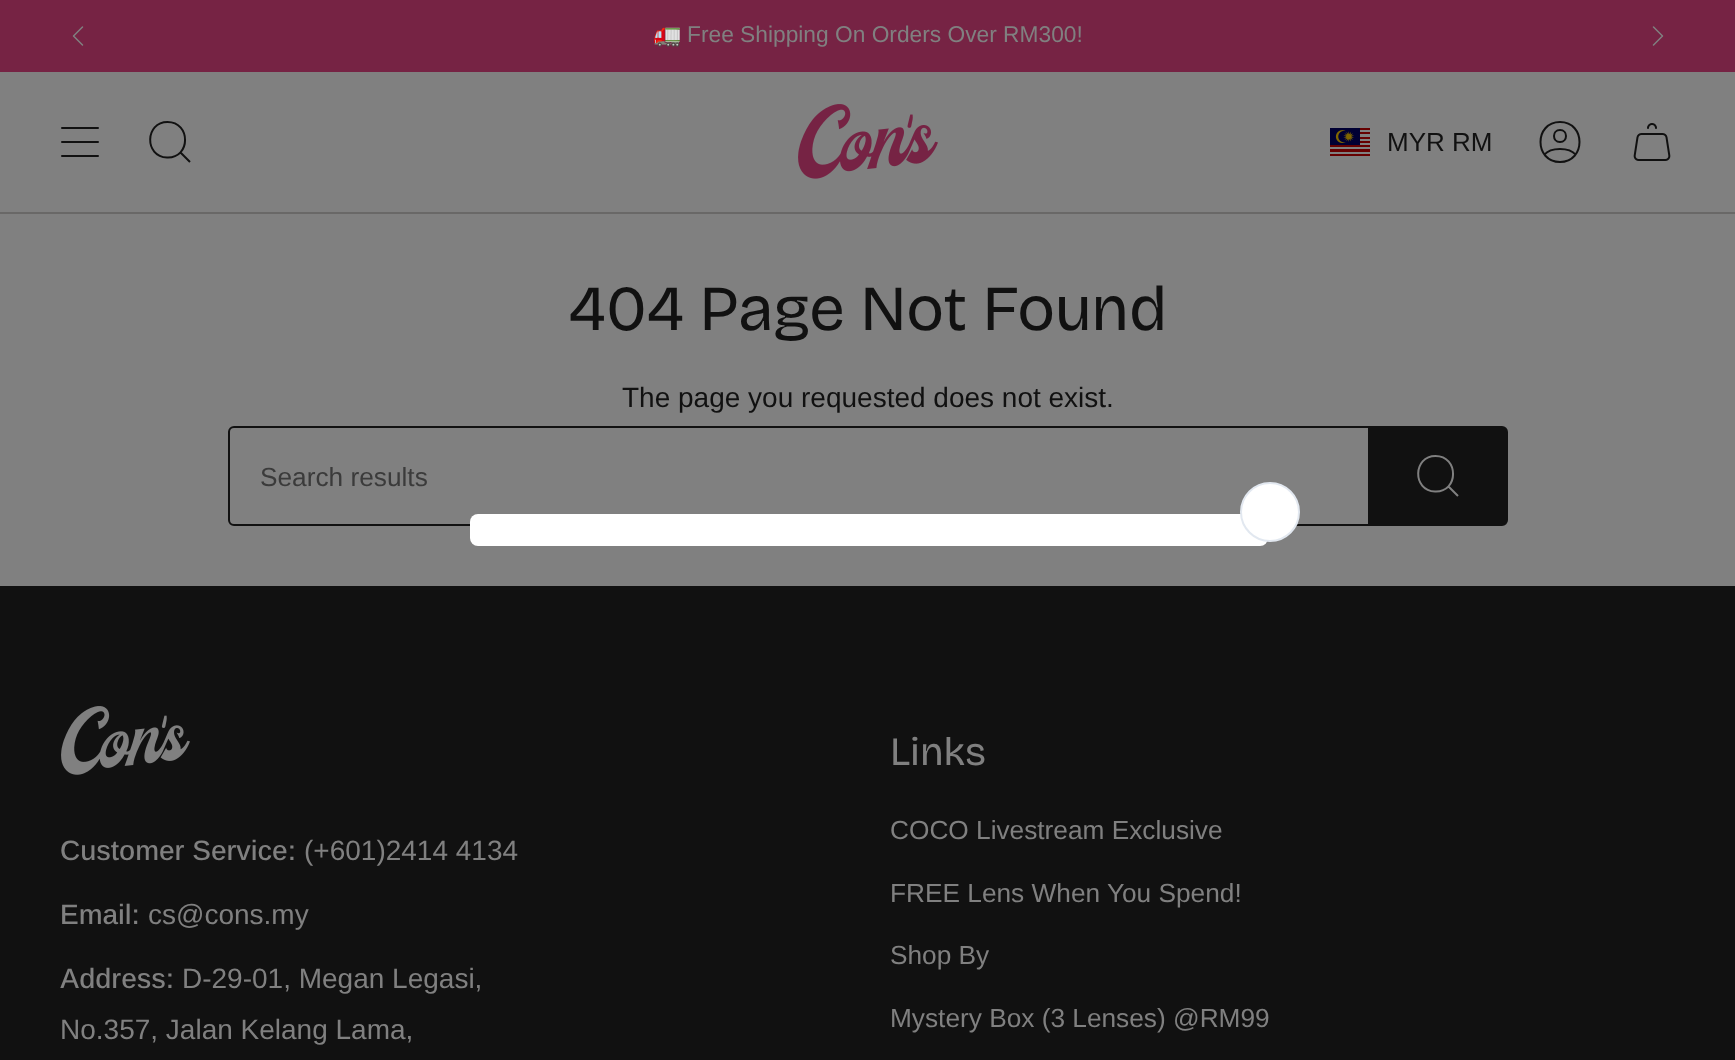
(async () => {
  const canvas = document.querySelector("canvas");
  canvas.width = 1735;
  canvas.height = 1060;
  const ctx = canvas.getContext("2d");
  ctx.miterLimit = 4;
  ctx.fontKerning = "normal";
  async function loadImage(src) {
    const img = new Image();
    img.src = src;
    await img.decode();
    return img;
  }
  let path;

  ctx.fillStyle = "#808080";
  ctx.fillRect(0, 0, 1735, 1060);
  ctx.fillStyle = "#762344";
  ctx.fillRect(0, 0, 1735, 72);
  path = new Path2D("M82.5 27L73.5 36L82.5 45");
  ctx.strokeStyle = "#808080";
  ctx.lineWidth = 1.5;
  ctx.lineCap = "round";
  ctx.lineJoin = "round";
  ctx.stroke(path);
  path = new Path2D("M1653.5 27L1662.5 36L1653.5 45");
  ctx.stroke(path);
  path = new Path2D("M62 128H98M62 142H98M62 156H98");
  ctx.strokeStyle = "#111111";
  ctx.lineWidth = 2;
  ctx.stroke(path);
  path = new Path2D("M167.5 122C191 122 191 158.5 167 157.5C144 156.5 145 122 167.5 122ZM180 152L190 162");
  ctx.lineCap = "butt";
  ctx.lineJoin = "miter";
  ctx.stroke(path);
  ctx.drawImage(await loadImage("img/1.png"), 798, 104, 140, 75);
  ctx.drawImage(await loadImage("img/2.png"), 1330, 128, 40, 28);
  path = new Path2D("M1560 122C1534 122 1534 162 1560 162C1586 162 1586 122 1560 122ZM1544.5 154.5C1550.5 147 1569.5 147 1575.5 154.5M1560 142C1568 142 1568 130 1560 130C1552 130 1552 142 1560 142Z");
  ctx.lineCap = "round";
  ctx.lineJoin = "round";
  ctx.stroke(path);
  ctx.drawImage(await loadImage("img/3.png"), 1633, 123, 38, 38);
  ctx.fillStyle = "#696867";
  ctx.fillRect(0, 212, 1735, 2);
  ctx.beginPath();
  ctx.roundRect(229, 427, 1140, 98, [5, 0, 0, 5]);
  ctx.lineJoin = "miter";
  ctx.stroke();
  ctx.fillStyle = "#111111";
  ctx.beginPath();
  ctx.roundRect(1371, 427, 136, 98, [0, 5, 5, 0]);
  ctx.fill();
  ctx.stroke();
  path = new Path2D("M1435.5 456C1459 456 1459 492.5 1435 491.5C1412 490.5 1413 456 1435.5 456ZM1448 486L1458 496");
  ctx.strokeStyle = "#808080";
  ctx.lineCap = "butt";
  ctx.stroke(path);
  ctx.fillStyle = "#ffffff";
  ctx.beginPath();
  ctx.roundRect(470, 514, 798, 32, 8);
  ctx.fill();
  ctx.beginPath();
  ctx.arc(1270, 512, 29, 0, Math.PI * 2);
  ctx.fill();
  ctx.strokeStyle = "#e2e8f0";
  ctx.stroke();
  ctx.fillStyle = "#111111";
  ctx.fillRect(0, 586, 1735, 474);
  ctx.drawImage(await loadImage("img/4.png"), 61, 706, 129, 69);
  ctx.font = "22.75px Noto Color Emoji";
  ctx.fillStyle = "#808080";
  ctx.fillText("🚛", 653, 42);
  ctx.font = "22.75px Arimo";
  ctx.fillText("Free Shipping On Orders Over RM300!", 687, 42);
  ctx.font = "26px Arimo";
  ctx.fillStyle = "#111111";
  ctx.fillText("MYR RM", 1387, 151);
  ctx.font = "64px 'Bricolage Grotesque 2'";
  ctx.fillText("404 Page Not Found", 569, 330);
  ctx.font = "28px Arimo";
  ctx.fillText("The page you requested does not exist.", 622, 407);
  ctx.font = "26.25px Arimo";
  ctx.fillStyle = "#3b3b3b";
  ctx.fillText("Search results", 260, 486);
  ctx.font = "500 28px Arimo";
  ctx.fillStyle = "#808080";
  ctx.fillText("Customer Service:", 60, 860);
  ctx.font = "28px Arimo";
  ctx.fillText("(+601)2414 4134", 304, 860);
  ctx.font = "500 28px Arimo";
  ctx.fillText("Email:", 60, 924);
  ctx.font = "28px Arimo";
  ctx.fillText("cs@cons.my", 148, 924);
  ctx.font = "500 28px Arimo";
  ctx.fillText("Address:", 60, 988);
  ctx.font = "28px Arimo";
  ctx.fillText("D-29-01, Megan Legasi,", 182, 988);
  ctx.fillText("No.357, Jalan Kelang Lama,", 60, 1039);
  ctx.font = "40px Bricolage Grotesque";
  ctx.fillText("Links", 890, 765);
  ctx.font = "26.25px Arimo";
  for (const [text, x, y] of [
    ["COCO Livestream Exclusive", 890, 839],
    ["FREE Lens When You Spend!", 890, 902],
    ["Shop By", 890, 964],
    ["Mystery Box (3 Lenses) @RM99", 890, 1027],
  ]) {
    ctx.fillText(text, x, y);
  }
})();
